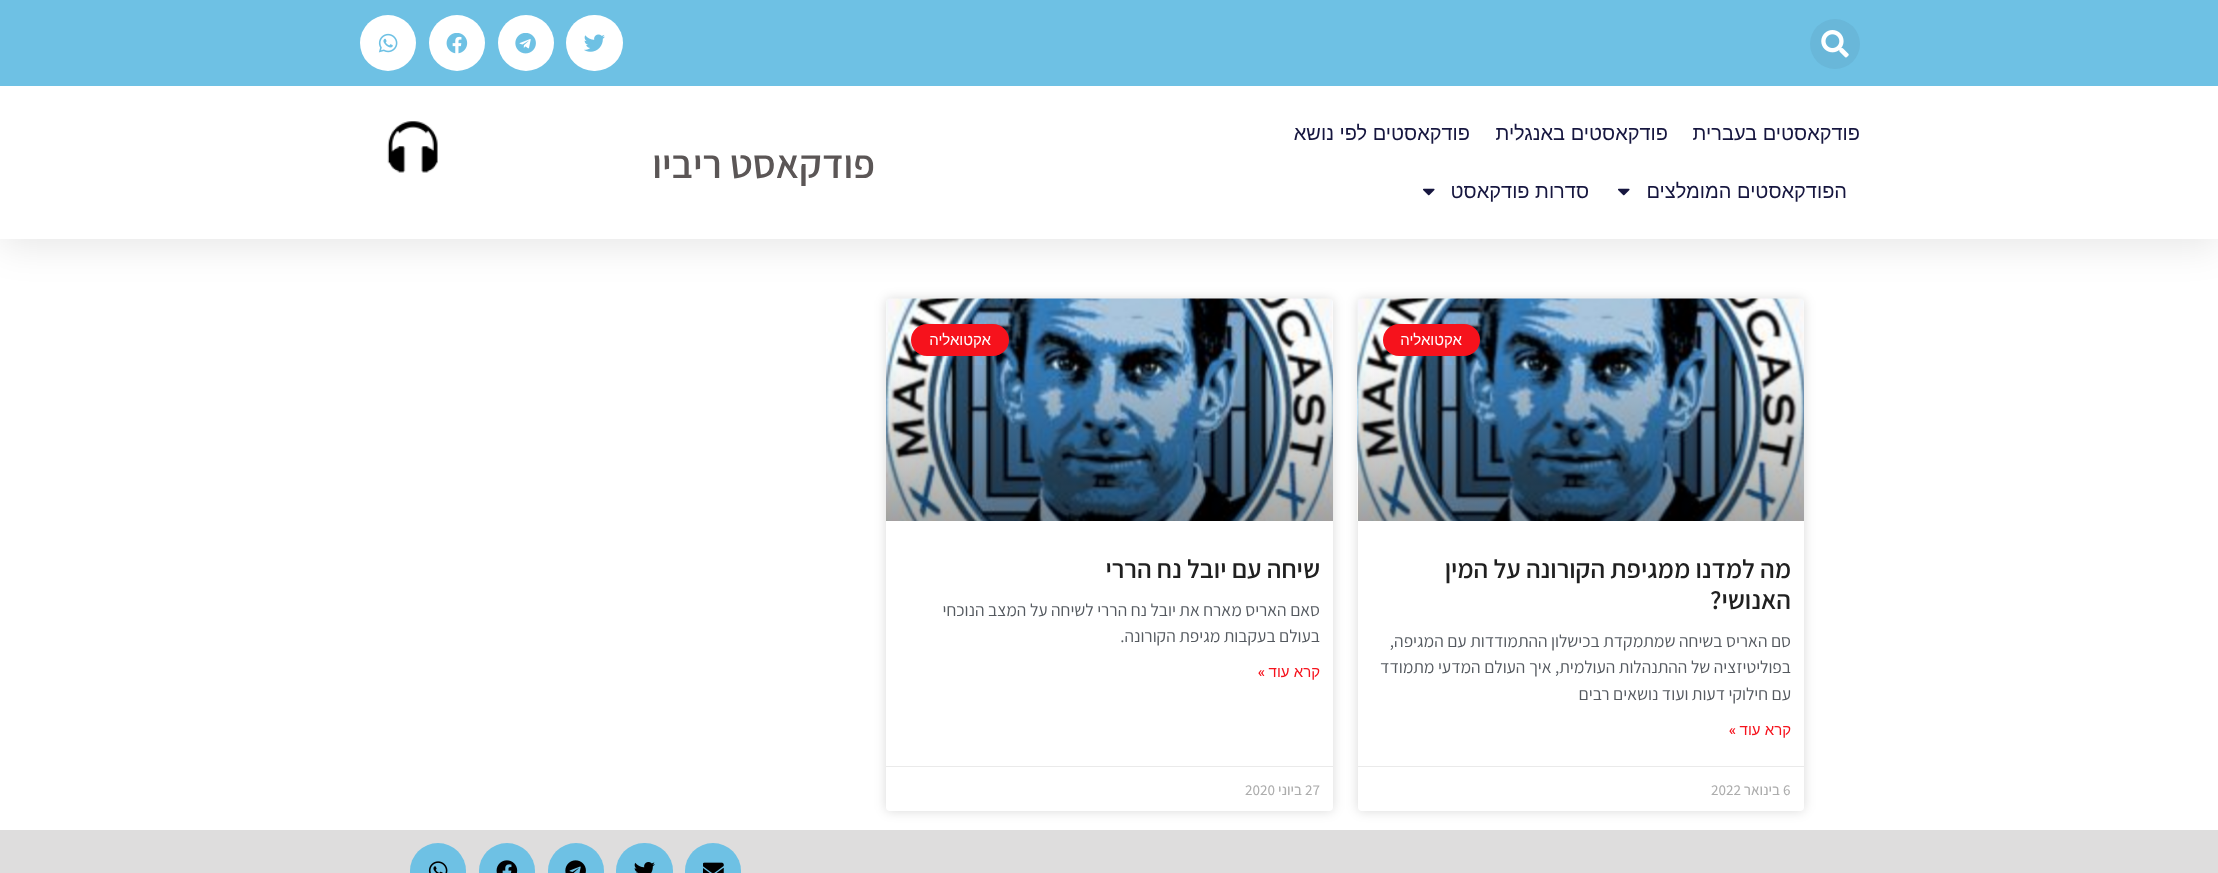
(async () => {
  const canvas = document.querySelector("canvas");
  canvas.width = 2218;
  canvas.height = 873;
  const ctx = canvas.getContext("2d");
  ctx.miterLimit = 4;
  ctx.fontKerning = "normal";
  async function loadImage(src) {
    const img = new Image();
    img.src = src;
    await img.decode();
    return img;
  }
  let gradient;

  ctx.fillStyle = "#ffffff";
  ctx.fillRect(0, 0, 2218, 873);
  ctx.fillStyle = "rgba(0, 0, 0, 0.15)";
  ctx.filter = "blur(6px)";
  ctx.beginPath();
  ctx.roundRect(1358, 299, 446, 512, 4);
  ctx.fill();
  ctx.filter = "none";
  ctx.fillStyle = "#ffffff";
  ctx.beginPath();
  ctx.roundRect(1358, 299, 446, 512, 4);
  ctx.fill();
  ctx.drawImage(await loadImage("img/8.png"), 1357, 298, 447, 223);
  ctx.fillStyle = "rgba(0, 0, 0, 0.15)";
  ctx.filter = "blur(6px)";
  ctx.beginPath();
  ctx.roundRect(886, 299, 447, 512, 4);
  ctx.fill();
  ctx.filter = "none";
  ctx.fillStyle = "#ffffff";
  ctx.beginPath();
  ctx.roundRect(886, 299, 447, 512, 4);
  ctx.fill();
  ctx.drawImage(await loadImage("img/9.png"), 886, 298, 447, 223);
  ctx.fillStyle = "rgba(0, 0, 0, 0.1)";
  ctx.filter = "blur(19px)";
  ctx.beginPath();
  ctx.rect(0, 6, 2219, 239);
  ctx.fill();
  ctx.filter = "none";
  ctx.fillStyle = "#6ec1e4";
  ctx.fillRect(0, 0, 2218, 86);
  ctx.fillStyle = "#69b7d9";
  ctx.beginPath();
  ctx.arc(1835, 44, 25, 0, Math.PI * 2);
  ctx.fill();
  ctx.drawImage(await loadImage("img/1.png"), 1821, 30, 28, 28);
  ctx.fillStyle = "#ffffff";
  ctx.beginPath();
  ctx.roundRect(566, 15, 57, 56, 28);
  ctx.fill();
  ctx.drawImage(await loadImage("img/2.png"), 584, 34, 21, 18);
  ctx.beginPath();
  ctx.arc(526, 43, 28, 0, Math.PI * 2);
  ctx.fill();
  ctx.drawImage(await loadImage("img/3.png"), 515, 33, 21, 21);
  ctx.beginPath();
  ctx.arc(457, 43, 28, 0, Math.PI * 2);
  ctx.fill();
  ctx.drawImage(await loadImage("img/4.png"), 446, 33, 22, 21);
  ctx.beginPath();
  ctx.arc(388, 43, 28, 0, Math.PI * 2);
  ctx.fill();
  ctx.drawImage(await loadImage("img/5.png"), 378, 33, 20, 20);
  ctx.fillRect(0, 86, 2218, 153);
  ctx.drawImage(await loadImage("img/6.png"), 1618, 188, 12, 8);
  ctx.drawImage(await loadImage("img/6.png"), 1423, 188, 12, 8);
  ctx.drawImage(await loadImage("img/7.png"), 387, 121, 51, 52);
  gradient = ctx.createLinearGradient(1581, 521, 1581, 299);
  gradient.addColorStop(0, "rgba(0, 0, 0, 0.35)");
  gradient.addColorStop(0.75, "rgba(0, 0, 0, 0)");
  ctx.fillStyle = gradient;
  ctx.fillRect(1358, 365, 446, 156);
  ctx.fillStyle = "#f6121c";
  ctx.beginPath();
  ctx.roundRect(1383, 324, 97, 32, 16);
  ctx.fill();
  ctx.fillStyle = "#eaeaea";
  ctx.fillRect(1358, 766, 446, 1);
  gradient = ctx.createLinearGradient(1109, 521, 1109, 299);
  gradient.addColorStop(0, "rgba(0, 0, 0, 0.35)");
  gradient.addColorStop(0.75, "rgba(0, 0, 0, 0)");
  ctx.fillStyle = gradient;
  ctx.fillRect(886, 365, 447, 156);
  ctx.fillStyle = "#f6121c";
  ctx.beginPath();
  ctx.roundRect(911, 324, 98, 32, 16);
  ctx.fill();
  ctx.fillStyle = "#eaeaea";
  ctx.fillRect(886, 766, 447, 1);
  ctx.fillStyle = "#dedddd";
  ctx.fillRect(0, 830, 2218, 43);
  ctx.fillStyle = "#6ec1e4";
  ctx.beginPath();
  ctx.arc(713, 871, 28, 0, Math.PI * 2);
  ctx.fill();
  ctx.drawImage(await loadImage("img/10.png"), 703, 862, 21, 11);
  ctx.beginPath();
  ctx.roundRect(616, 843, 57, 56, 28);
  ctx.fill();
  ctx.drawImage(await loadImage("img/11.png"), 634, 862, 21, 11);
  ctx.beginPath();
  ctx.arc(576, 871, 28, 0, Math.PI * 2);
  ctx.fill();
  ctx.drawImage(await loadImage("img/12.png"), 565, 860, 21, 13);
  ctx.beginPath();
  ctx.arc(507, 871, 28, 0, Math.PI * 2);
  ctx.fill();
  ctx.drawImage(await loadImage("img/13.png"), 496, 860, 22, 13);
  ctx.beginPath();
  ctx.arc(438, 871, 28, 0, Math.PI * 2);
  ctx.fill();
  ctx.drawImage(await loadImage("img/14.png"), 428, 861, 20, 12);
  ctx.direction = "rtl";
  ctx.font = "20px Liberation Sans";
  ctx.fillStyle = "#16163f";
  for (const [text, x, y] of [
    ["פודקאסטים בעברית", 1860, 140],
    ["פודקאסטים באנגלית", 1668, 140],
    ["פודקאסטים לפי נושא", 1470, 140],
    ["הפודקאסטים המומלצים", 1847, 198],
    ["סדרות פודקאסט", 1589, 198],
  ]) {
    ctx.fillText(text, x, y);
  }
  ctx.font = "600 40px Assistant";
  ctx.fillStyle = "#5b5656";
  ctx.fillText("פודקאסט ריביו", 875, 178);
  ctx.font = "15px Liberation Sans";
  ctx.fillStyle = "#ffffff";
  ctx.fillText("אקטואליה", 1462, 345);
  ctx.font = "600 26.25px Assistant";
  ctx.fillStyle = "#202020";
  ctx.fillText("מה למדנו ממגיפת הקורונה על המין", 1791, 578);
  ctx.fillText("האנושי?", 1791, 609);
  ctx.font = "17.5px Assistant";
  ctx.fillStyle = "#54595f";
  for (const [text, x, y] of [
    ["סם האריס בשיחה שמתמקדת בכישלון ההתמודדות עם המגיפה,", 1791, 647],
    ["בפוליטיזציה של ההתנהלות העולמית, איך העולם המדעי מתמודד", 1791, 673],
    ["עם חילוקי דעות ועוד נושאים רבים", 1791, 700],
  ]) {
    ctx.fillText(text, x, y);
  }
  ctx.font = "15px Liberation Sans";
  ctx.fillStyle = "#f6121c";
  ctx.fillText("קרא עוד", 1791, 735);
  ctx.font = "500 15px Roboto";
  ctx.fillText("»", 1736, 735);
  ctx.direction = "ltr";
  ctx.font = "500 15px Assistant";
  ctx.fillStyle = "#adadad";
  ctx.fillText("6", 1783, 795);
  ctx.direction = "rtl";
  ctx.fillText("בינואר", 1780, 795);
  ctx.direction = "ltr";
  ctx.fillText("2022", 1711, 795);
  ctx.direction = "rtl";
  ctx.font = "15px Liberation Sans";
  ctx.fillStyle = "#ffffff";
  ctx.fillText("אקטואליה", 991, 345);
  ctx.font = "600 26.25px Assistant";
  ctx.fillStyle = "#202020";
  ctx.fillText("שיחה עם יובל נח הררי", 1320, 578);
  ctx.font = "17.5px Assistant";
  ctx.fillStyle = "#54595f";
  ctx.fillText("סאם האריס מארח את יובל נח הררי לשיחה על המצב הנוכחי", 1320, 616);
  ctx.fillText("בעולם בעקבות מגיפת הקורונה.", 1320, 642);
  ctx.font = "15px Liberation Sans";
  ctx.fillStyle = "#f6121c";
  ctx.fillText("קרא עוד", 1320, 677);
  ctx.font = "500 15px Roboto";
  ctx.fillText("»", 1265, 677);
  ctx.direction = "ltr";
  ctx.font = "500 15px Assistant";
  ctx.fillStyle = "#adadad";
  ctx.fillText("27", 1305, 795);
  ctx.direction = "rtl";
  ctx.fillText("ביוני", 1302, 795);
  ctx.direction = "ltr";
  ctx.fillText("2020", 1245, 795);
})();
